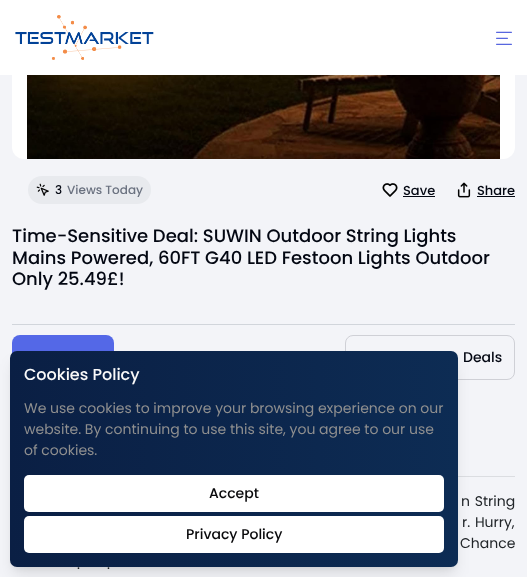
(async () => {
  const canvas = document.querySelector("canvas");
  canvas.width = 527;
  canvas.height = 577;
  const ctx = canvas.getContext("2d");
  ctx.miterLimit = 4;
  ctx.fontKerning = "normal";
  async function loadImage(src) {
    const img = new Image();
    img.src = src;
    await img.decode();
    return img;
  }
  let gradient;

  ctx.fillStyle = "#f3f4f8";
  ctx.fillRect(0, 0, 527, 577);
  ctx.fillStyle = "#ffffff";
  ctx.beginPath();
  ctx.roundRect(12, -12, 503, 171, 12);
  ctx.fill();
  ctx.fillRect(0, 0, 527, 75);
  ctx.drawImage(await loadImage("img/1.png"), 15, 15, 139, 45);
  ctx.drawImage(await loadImage("img/2.png"), 496, 31, 16, 14);
  ctx.drawImage(await loadImage("img/3.png"), 27, 75, 473, 84);
  ctx.fillStyle = "#e8eaee";
  ctx.beginPath();
  ctx.roundRect(28, 176, 123, 28, 14);
  ctx.fill();
  ctx.drawImage(await loadImage("img/4.png"), 36, 183, 13, 13);
  ctx.drawImage(await loadImage("img/5.png"), 382, 183, 16, 14);
  ctx.fillStyle = "#030712";
  ctx.fillRect(403, 196, 32, 1);
  ctx.drawImage(await loadImage("img/6.png"), 457, 182, 14, 16);
  ctx.fillRect(477, 196, 38, 1);
  ctx.fillStyle = "#d1d5db";
  ctx.fillRect(12, 324, 503, 1);
  ctx.fillStyle = "#5468e7";
  ctx.beginPath();
  ctx.roundRect(12, 335, 102, 46, 8);
  ctx.fill();
  ctx.beginPath();
  ctx.roundRect(345.5, 335.5, 169, 44, 7.5);
  ctx.strokeStyle = "#cfd0d6";
  ctx.stroke();
  ctx.fillStyle = "#dbdde1";
  ctx.fillRect(458, 476, 57, 1);
  ctx.fillStyle = "rgba(0, 0, 0, 0.1)";
  ctx.filter = "blur(3px)";
  ctx.beginPath();
  ctx.roundRect(14, 359, 440, 208, 3);
  ctx.fill();
  ctx.filter = "none";
  ctx.filter = "blur(7.5px)";
  ctx.beginPath();
  ctx.roundRect(13, 364, 442, 210, 4);
  ctx.fill();
  ctx.filter = "none";
  gradient = ctx.createLinearGradient(10, 459, 458, 459);
  gradient.addColorStop(0, "#0a1f44");
  gradient.addColorStop(1, "#0d2c54");
  ctx.fillStyle = gradient;
  ctx.beginPath();
  ctx.roundRect(10, 351, 448, 216, 7);
  ctx.fill();
  ctx.fillStyle = "#ffffff";
  ctx.beginPath();
  ctx.roundRect(24, 475, 420, 37, 5);
  ctx.fill();
  ctx.beginPath();
  ctx.roundRect(24, 516, 420, 37, 5);
  ctx.fill();
  ctx.font = "500 12px Poppins";
  ctx.fillStyle = "#030712";
  ctx.fillText("3", 55, 194);
  ctx.fillStyle = "#6b7280";
  ctx.fillText("Views Today", 67, 194);
  ctx.font = "500 13px Poppins";
  ctx.fillStyle = "#030712";
  ctx.fillText("Save", 403, 195);
  ctx.fillText("Share", 477, 195);
  ctx.font = "500 18px Poppins";
  for (const [text, x, y] of [
    ["Time-Sensitive Deal: SUWIN Outdoor String Lights", 12, 242],
    ["Mains Powered, 60FT G40 LED Festoon Lights Outdoor", 12, 264],
    ["Only 25.49£!", 12, 285],
  ]) {
    ctx.fillText(text, x, y);
  }
  ctx.font = "500 14px Poppins";
  ctx.fillText("Deals", 463, 362);
  ctx.wordSpacing = "1px";
  ctx.font = "14px Poppins";
  ctx.fillStyle = "#212529";
  ctx.fillText("n String", 461, 506);
  ctx.fillText("r. Hurry,", 462, 527);
  ctx.wordSpacing = "0px";
  for (const [text, x, y] of [
    ["Chance", 460, 548],
    [".", 77, 569],
    [".", 107, 569],
  ]) {
    ctx.fillText(text, x, y);
  }
  ctx.font = "500 16px Poppins";
  ctx.fillStyle = "#fafafa";
  ctx.fillText("Cookies Policy", 24, 380);
  ctx.font = "14px Poppins";
  ctx.fillStyle = "#8f8f8f";
  for (const [text, x, y] of [
    ["We use cookies to improve your browsing experience on our", 24, 413],
    ["website. By continuing to use this site, you agree to our use", 24, 434],
    ["of cookies.", 24, 455],
  ]) {
    ctx.fillText(text, x, y);
  }
  ctx.font = "500 14px Poppins";
  ctx.fillStyle = "#09090b";
  ctx.fillText("Accept", 209, 498);
  ctx.fillText("Privacy Policy", 186, 539);
})();
